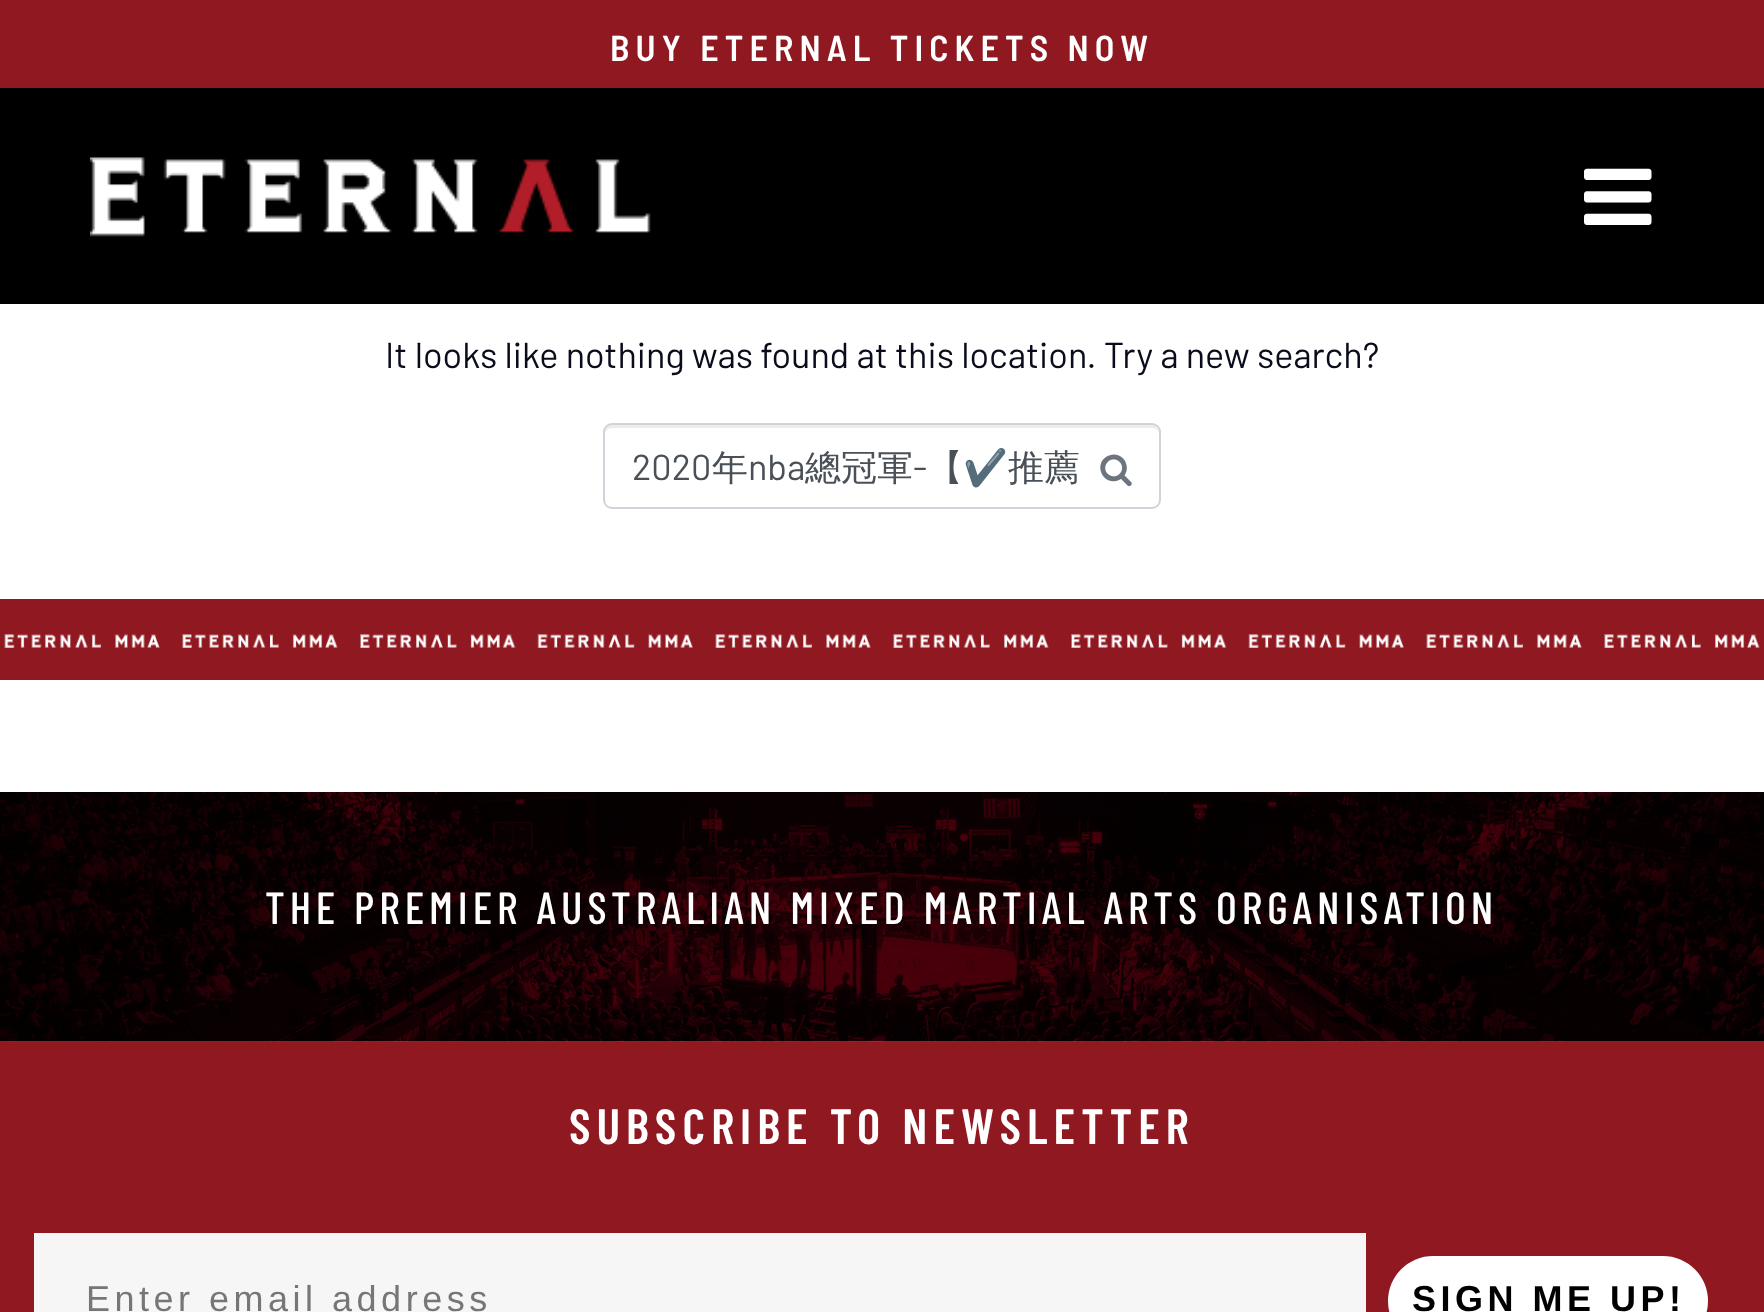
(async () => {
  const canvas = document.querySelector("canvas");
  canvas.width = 1764;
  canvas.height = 1312;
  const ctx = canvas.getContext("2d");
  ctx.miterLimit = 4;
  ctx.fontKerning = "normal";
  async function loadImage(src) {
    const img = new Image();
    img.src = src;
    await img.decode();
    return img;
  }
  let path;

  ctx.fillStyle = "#ffffff";
  ctx.fillRect(0, 0, 1764, 1312);
  ctx.fillStyle = "#901921";
  ctx.fillRect(0, 0, 1764, 88);
  ctx.fillStyle = "#000000";
  ctx.fillRect(0, 88, 1764, 216);
  ctx.drawImage(await loadImage("img/1.png"), 90, 157, 561, 80);
  ctx.drawImage(await loadImage("img/2.png"), 1584, 168, 68, 57);
  ctx.fillStyle = "#ececec";
  path = new Path2D("M612 428H1152C1156 428 1159 431 1159 434C1159 430 1157 425 1152 425H612C607 425 605 430 605 434C605 431 608 428 612 428Z");
  ctx.fill(path);
  ctx.beginPath();
  ctx.roundRect(604, 424, 556, 84, 8);
  ctx.strokeStyle = "#ced4da";
  ctx.lineWidth = 2;
  ctx.stroke();
  ctx.drawImage(await loadImage("img/3.png"), 1100, 454, 32, 33);
  ctx.fillStyle = "#901921";
  ctx.fillRect(0, 599, 1764, 81);
  ctx.drawImage(await loadImage("img/4.png"), 4, 634, 156, 14);
  ctx.drawImage(await loadImage("img/5.png"), 182, 634, 156, 14);
  ctx.drawImage(await loadImage("img/6.png"), 360, 634, 156, 14);
  ctx.drawImage(await loadImage("img/7.png"), 537, 634, 156, 14);
  ctx.drawImage(await loadImage("img/8.png"), 715, 634, 156, 14);
  ctx.drawImage(await loadImage("img/9.png"), 893, 634, 156, 14);
  ctx.drawImage(await loadImage("img/6.png"), 1071, 634, 156, 14);
  ctx.drawImage(await loadImage("img/10.png"), 1248, 634, 156, 14);
  ctx.drawImage(await loadImage("img/11.png"), 1426, 634, 156, 14);
  ctx.drawImage(await loadImage("img/5.png"), 1604, 634, 156, 14);
  ctx.drawImage(await loadImage("img/12.png"), 0, 792, 1764, 250);
  ctx.fillRect(0, 1042, 1764, 270);
  ctx.fillStyle = "#f6f6f6";
  ctx.fillRect(34, 1233, 1332, 79);
  ctx.fillStyle = "#ffffff";
  ctx.beginPath();
  ctx.roundRect(1388, 1256, 320, 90, 45);
  ctx.fill();
  ctx.letterSpacing = "6.1px";
  ctx.font = "600 36px Barlow Semi Condensed";
  ctx.fillText("BUY ETERNAL TICKETS NOW", 610, 61);
  ctx.letterSpacing = "0px";
  ctx.font = "36px Barlow";
  ctx.fillStyle = "#0a0c1b";
  ctx.fillText("It looks like nothing was found at this location. Try a new search?", 385, 368);
  ctx.fillStyle = "#495057";
  ctx.fillText("2020", 632, 480);
  ctx.font = "500 36px WenQuanYi Zen Hei";
  ctx.fillText("年", 712, 480);
  ctx.font = "36px Barlow";
  ctx.fillText("nba", 748, 480);
  ctx.font = "500 36px WenQuanYi Zen Hei";
  ctx.fillText("總冠軍", 805, 480);
  ctx.font = "36px Barlow";
  ctx.fillText("-", 913, 480);
  ctx.font = "500 36px WenQuanYi Zen Hei";
  ctx.fillText("【", 927, 480);
  ctx.font = "36px Noto Color Emoji";
  ctx.fillText("✔️", 963, 480);
  ctx.font = "500 36px WenQuanYi Zen Hei";
  ctx.fillText("推薦", 1008, 480);
  ctx.letterSpacing = "4.95px";
  ctx.font = "500 45px Barlow Condensed";
  ctx.fillStyle = "#ffffff";
  ctx.fillText("THE PREMIER AUSTRALIAN MIXED MARTIAL ARTS ORGANISATION", 265, 924);
  ctx.letterSpacing = "6.1px";
  ctx.font = "600 49.5px Barlow Condensed";
  ctx.fillText("SUBSCRIBE TO NEWSLETTER", 569, 1144);
  ctx.letterSpacing = "4.5px";
  ctx.font = "36px Liberation Sans";
  ctx.fillStyle = "#767676";
  ctx.fillText("Enter email address", 86, 1311);
  ctx.font = "bold 36px Liberation Sans";
  ctx.fillStyle = "#000000";
  ctx.fillText("SIGN ME UP!", 1412, 1311);
})();
